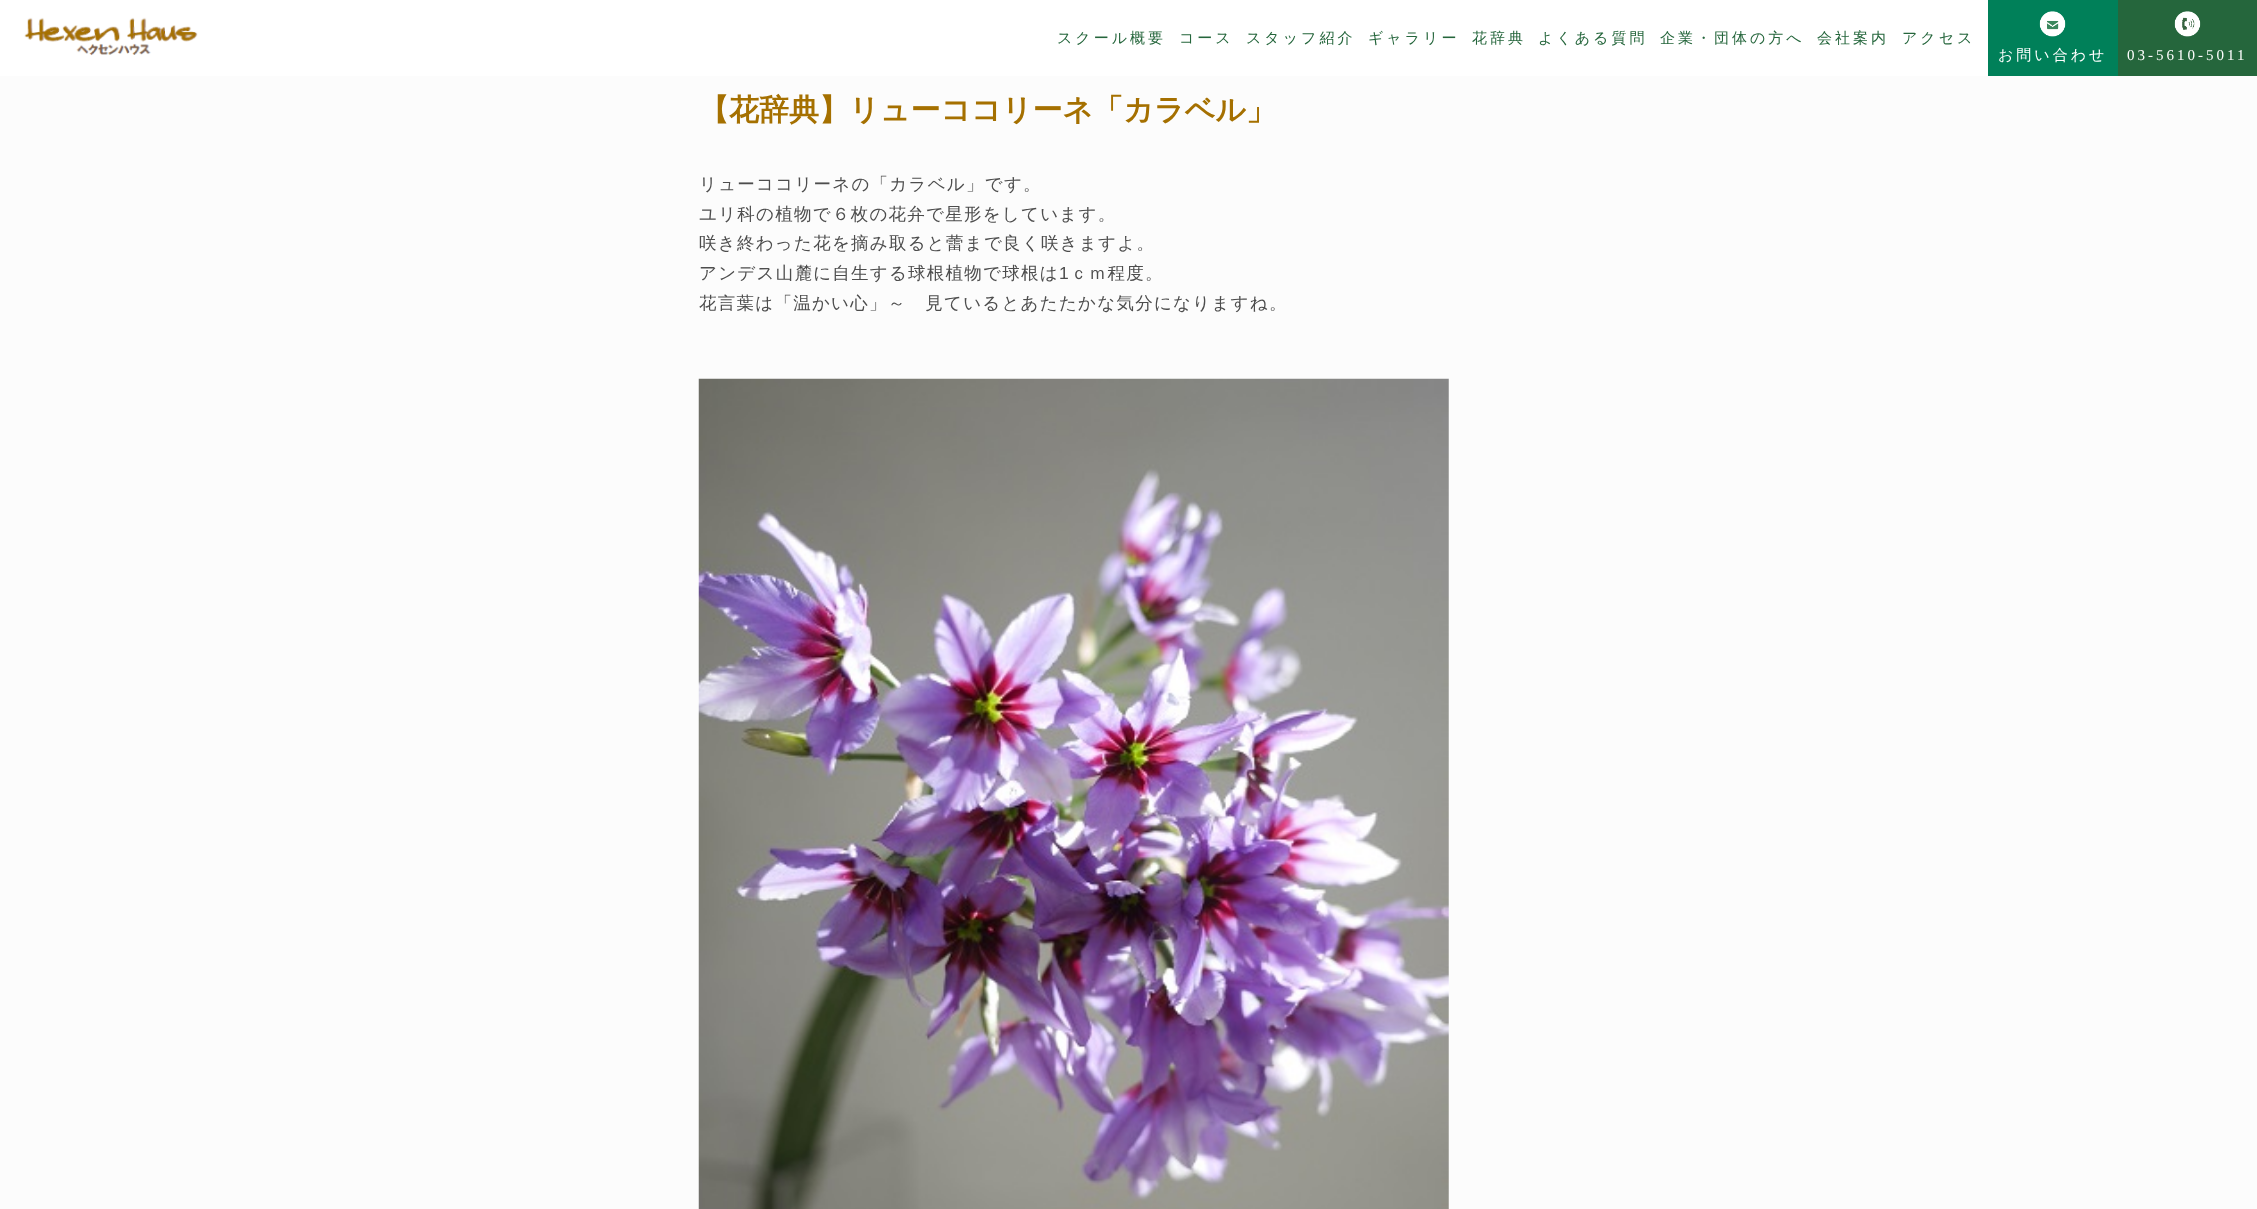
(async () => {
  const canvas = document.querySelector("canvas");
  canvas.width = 2257;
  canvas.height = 1209;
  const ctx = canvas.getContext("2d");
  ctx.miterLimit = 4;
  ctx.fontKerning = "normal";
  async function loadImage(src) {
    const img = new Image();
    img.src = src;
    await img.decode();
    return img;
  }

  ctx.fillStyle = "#fcfcfc";
  ctx.fillRect(0, 0, 2257, 1209);
  ctx.fillStyle = "#ffffff";
  ctx.fillRect(0, 0, 1988, 76);
  ctx.drawImage(await loadImage("img/1.png"), 24, 17, 174, 39);
  ctx.fillStyle = "#008059";
  ctx.fillRect(1988, 0, 130, 76);
  ctx.drawImage(await loadImage("img/2.png"), 2039, 11, 27, 26);
  ctx.fillStyle = "#25663c";
  ctx.fillRect(2118, 0, 139, 76);
  ctx.drawImage(await loadImage("img/3.png"), 2174, 11, 27, 26);
  ctx.drawImage(await loadImage("img/4.png"), 698, 378, 751, 831);
  ctx.letterSpacing = "3px";
  ctx.font = "500 15px WenQuanYi Zen Hei";
  for (const [text, x, y] of [
    ["スクール概要", 1057, 43],
    ["コース", 1179, 43],
    ["スタッフ紹介", 1246, 43],
    ["ギャラリー", 1368, 43],
    ["花辞典", 1472, 43],
    ["よくある質問", 1538, 43],
    ["企業・団体の方へ", 1660, 43],
    ["会社案内", 1817, 43],
    ["アクセス", 1902, 43],
  ]) {
    ctx.fillText(text, x, y);
  }
  ctx.fillStyle = "#ffffff";
  ctx.fillText("お問い合わせ", 1998, 60);
  ctx.font = "15px Liberation Serif";
  ctx.fillText("03-5610-5011", 2127, 60);
  ctx.letterSpacing = "0px";
  ctx.font = "bold 30px WenQuanYi Zen Hei";
  ctx.fillStyle = "#a57000";
  ctx.fillText("【花辞典】リューココリーネ「カラベル」", 699, 120);
  ctx.letterSpacing = "1.25px";
  ctx.font = "500 17.5px WenQuanYi Zen Hei";
  ctx.fillStyle = "#4d4d4d";
  for (const [text, x, y] of [
    ["リューココリーネの「カラベル」です。", 699, 190],
    ["ユリ科の植物で６枚の花弁で星形をしています。", 699, 220],
    ["咲き終わった花を摘み取ると蕾まで良く咲きますよ。", 699, 249],
    ["アンデス山麓に自生する球根植物で球根は", 699, 279],
  ]) {
    ctx.fillText(text, x, y);
  }
  ctx.font = "17.5px Liberation Sans";
  ctx.fillText("1", 1059, 279);
  ctx.font = "500 17.5px WenQuanYi Zen Hei";
  ctx.fillText("ｃｍ程度。", 1070, 279);
  ctx.fillText("花言葉は「温かい心」～　見ているとあたたかな気分になりますね。", 699, 309);
})();
